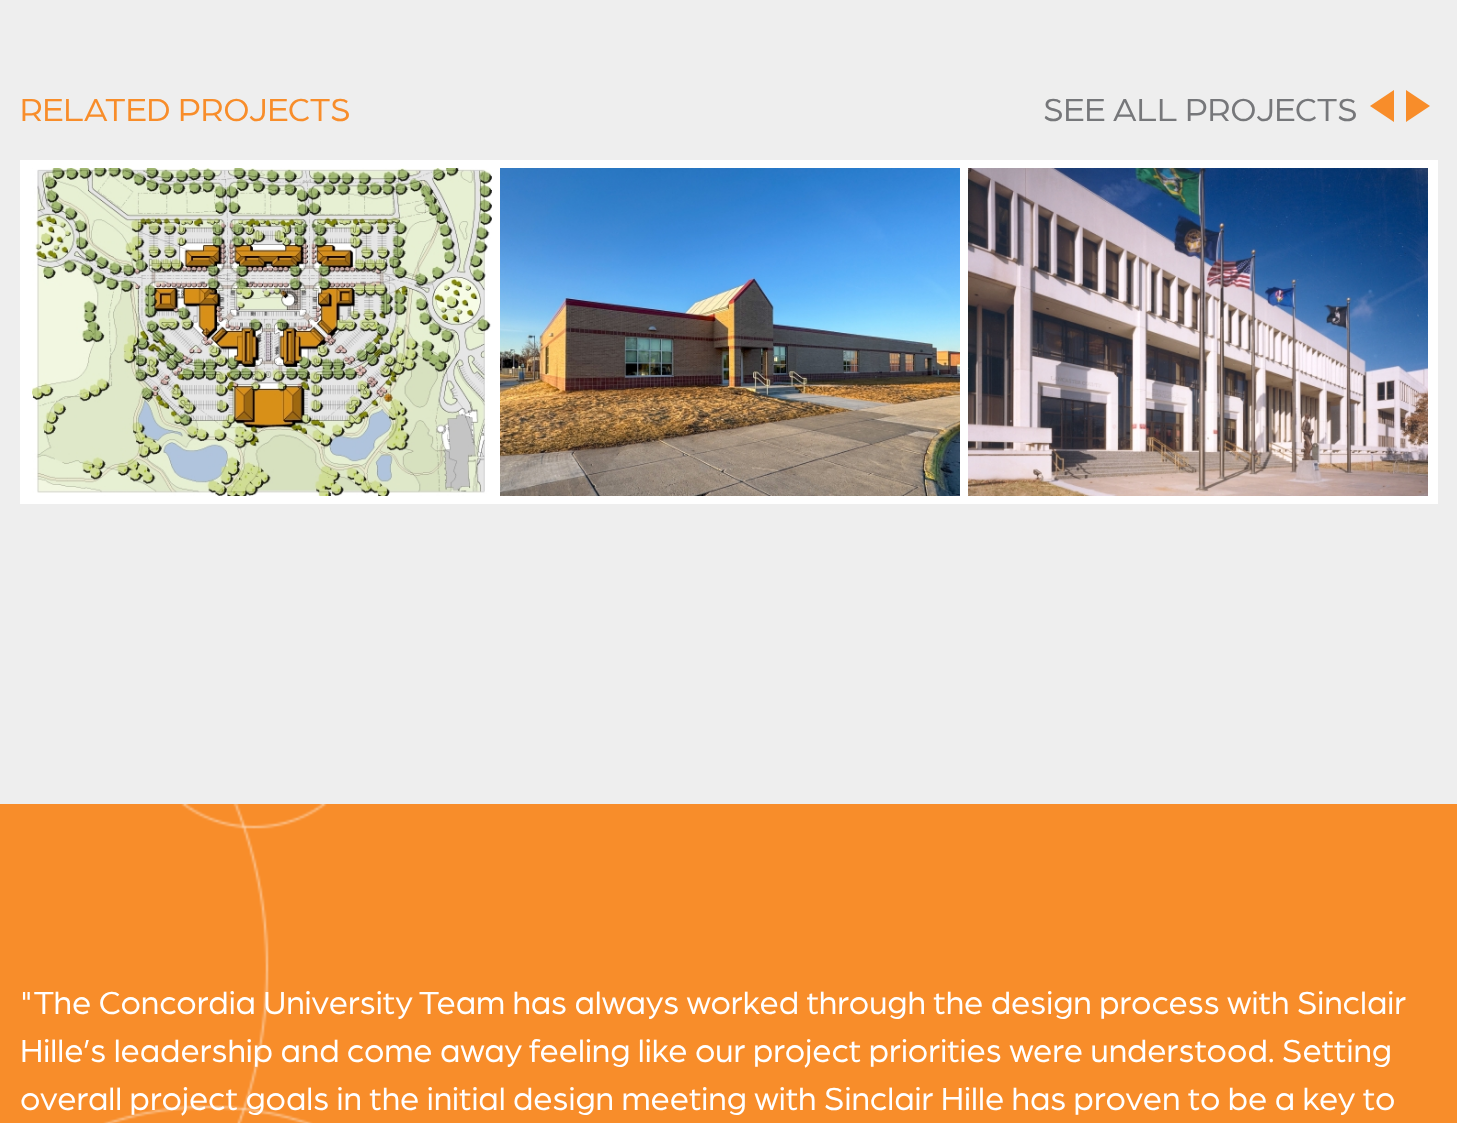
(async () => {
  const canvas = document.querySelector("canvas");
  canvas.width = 1457;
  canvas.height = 1123;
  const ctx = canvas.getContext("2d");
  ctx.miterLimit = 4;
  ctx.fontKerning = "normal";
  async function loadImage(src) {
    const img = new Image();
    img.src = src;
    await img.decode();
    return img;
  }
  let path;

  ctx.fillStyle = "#eeeeee";
  ctx.fillRect(0, 0, 1457, 1123);
  ctx.strokeStyle = "#ffffff";
  ctx.lineWidth = 8;
  ctx.strokeRect(24, 164, 1410, 336);
  ctx.fillStyle = "#f88d2a";
  path = new Path2D("M1394 90V122L1370 106ZM1406 122V90L1430 106Z");
  ctx.fill(path);
  ctx.fillStyle = "#ffffff";
  ctx.fillRect(28, 168, 4, 328);
  ctx.drawImage(await loadImage("img/1.png"), 32, 168, 460, 328);
  ctx.fillRect(960, 168, 8, 328);
  ctx.fillRect(492, 168, 8, 328);
  ctx.drawImage(await loadImage("img/2.png"), 500, 168, 460, 328);
  ctx.fillRect(1428, 168, 2, 328);
  ctx.drawImage(await loadImage("img/3.png"), 968, 168, 460, 328);
  ctx.fillStyle = "#f88d2a";
  ctx.fillRect(0, 804, 1457, 319);
  ctx.drawImage(await loadImage("img/4.png"), 103, 804, 224, 319);
  ctx.font = "34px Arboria";
  ctx.fillText("RELATED PROJECTS", 20, 121);
  ctx.fillStyle = "#76777a";
  ctx.fillText("SEE ALL PROJECTS", 1043, 121);
  ctx.fillStyle = "#ffffff";
  for (const [text, x, y] of [
    ["\"The Concordia University Team has always worked through the design process with Sinclair", 20, 1014],
    ["Hille’s leadership and come away feeling like our project priorities were understood. Setting", 20, 1062],
    ["overall project goals in the initial design meeting with Sinclair Hille has proven to be a key to", 20, 1110],
  ]) {
    ctx.fillText(text, x, y);
  }
})();
